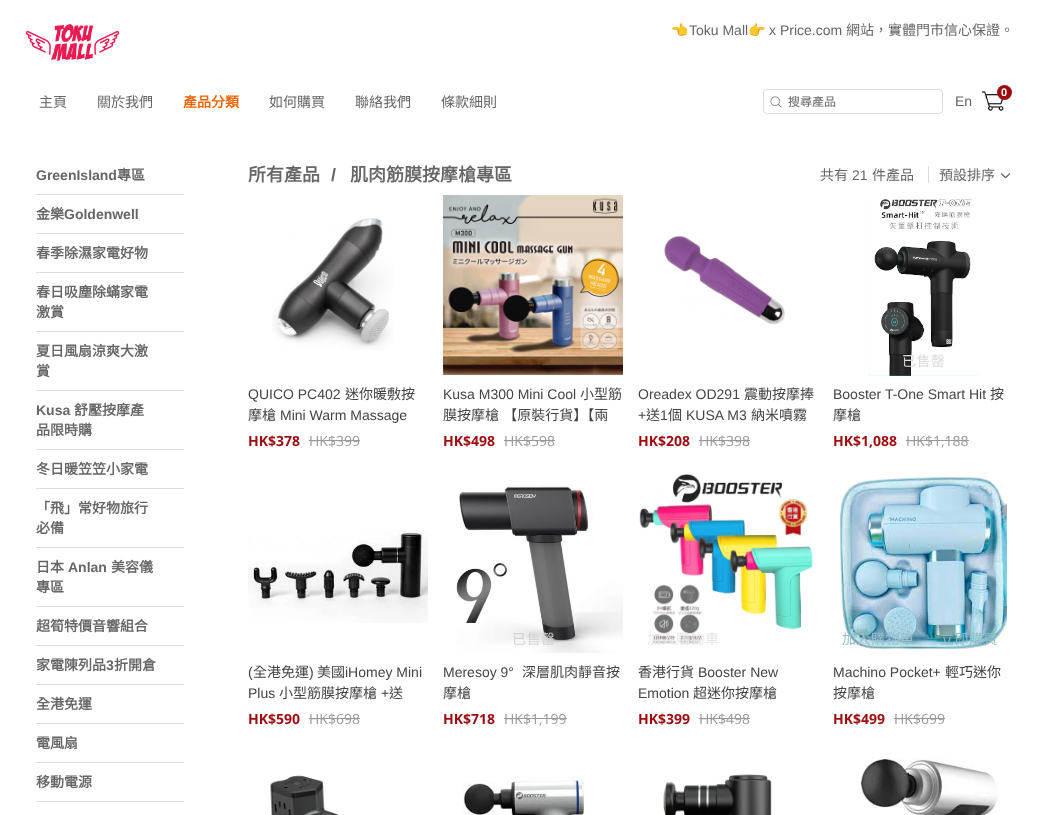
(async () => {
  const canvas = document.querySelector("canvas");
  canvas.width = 1038;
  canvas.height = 815;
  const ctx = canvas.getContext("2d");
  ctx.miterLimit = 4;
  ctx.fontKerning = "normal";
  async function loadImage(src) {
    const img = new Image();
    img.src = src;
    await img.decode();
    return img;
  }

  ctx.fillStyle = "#ffffff";
  ctx.fillRect(0, 0, 1038, 815);
  ctx.drawImage(await loadImage("img/1.png"), 25, 24, 95, 37);
  ctx.drawImage(await loadImage("img/2.png"), 982, 91, 22, 20);
  ctx.fillStyle = "#9e0b0f";
  ctx.beginPath();
  ctx.arc(1004.5, 92.5, 7.5, 0, Math.PI * 2);
  ctx.fill();
  ctx.drawImage(await loadImage("img/3.png"), 770, 96, 12, 12);
  ctx.beginPath();
  ctx.roundRect(763.5, 89.5, 179, 24, 3.5);
  ctx.strokeStyle = "#dcdcdc";
  ctx.stroke();
  for (const [x, y, w, h, color] of [
    [36, 194, 148, 1, "#dcdcdc"],
    [36, 233, 148, 1, "#dcdcdc"],
    [36, 272, 148, 1, "#dcdcdc"],
    [36, 331, 148, 1, "#dcdcdc"],
    [36, 390, 148, 1, "#dcdcdc"],
    [36, 449, 148, 1, "#dcdcdc"],
    [36, 488, 148, 1, "#dcdcdc"],
    [36, 547, 148, 1, "#dcdcdc"],
    [36, 606, 148, 1, "#dcdcdc"],
    [36, 645, 148, 1, "#dcdcdc"],
    [36, 684, 148, 1, "#dcdcdc"],
    [36, 723, 148, 1, "#dcdcdc"],
    [36, 762, 148, 1, "#dcdcdc"],
    [36, 801, 148, 1, "#dcdcdc"],
    [928, 166, 1, 17, "#dcdcdc"],
  ]) {
    ctx.fillStyle = color;
    ctx.fillRect(x, y, w, h);
  }
  ctx.drawImage(await loadImage("img/4.png"), 1001, 173, 9, 6);
  ctx.drawImage(await loadImage("img/5.png"), 272, 218, 121, 132);
  ctx.fillStyle = "#999999";
  ctx.fillRect(309, 440, 51, 1);
  ctx.drawImage(await loadImage("img/6.png"), 443, 195, 180, 180);
  ctx.fillRect(504, 440, 51, 1);
  ctx.drawImage(await loadImage("img/7.png"), 664, 235, 121, 90);
  ctx.fillRect(699, 440, 51, 1);
  ctx.drawImage(await loadImage("img/8.png"), 868, 199, 110, 177);
  ctx.fillRect(906, 440, 63, 1);
  ctx.drawImage(await loadImage("img/9.png"), 248, 530, 180, 93);
  ctx.fillRect(309, 718, 51, 1);
  ctx.drawImage(await loadImage("img/10.png"), 456, 486, 167, 167);
  ctx.fillRect(504, 718, 63, 1);
  ctx.drawImage(await loadImage("img/11.png"), 639, 474, 174, 170);
  ctx.fillRect(699, 718, 51, 1);
  ctx.drawImage(await loadImage("img/12.png"), 840, 476, 167, 174);
  ctx.fillRect(894, 718, 51, 1);
  ctx.drawImage(await loadImage("img/13.png"), 270, 775, 69, 40);
  ctx.drawImage(await loadImage("img/14.png"), 462, 776, 122, 39);
  ctx.drawImage(await loadImage("img/15.png"), 663, 774, 109, 41);
  ctx.drawImage(await loadImage("img/16.png"), 859, 757, 139, 58);
  ctx.font = "14px Noto Color Emoji";
  ctx.fillStyle = "#666666";
  ctx.fillText("👈", 671, 35);
  ctx.font = "14px Liberation Sans";
  ctx.fillText("Toku Mall", 689, 35);
  ctx.font = "14px Noto Color Emoji";
  ctx.fillText("👉", 748, 35);
  ctx.font = "14px Liberation Sans";
  ctx.fillText("x Price.com", 769, 35);
  ctx.font = "14px Noto Sans CJK HK";
  ctx.fillText("網站，實體門市信心保證。", 846, 35);
  ctx.font = "bold 11px Liberation Sans";
  ctx.fillStyle = "#ffffff";
  ctx.fillText("0", 1001, 96);
  ctx.font = "14px Noto Sans CJK HK";
  ctx.fillStyle = "#666666";
  ctx.fillText("主頁", 39, 107);
  ctx.fillText("關於我們", 97, 107);
  ctx.font = "bold 14px Noto Sans CJK HK";
  ctx.fillStyle = "#ef6300";
  ctx.fillText("產品分類", 183, 107);
  ctx.font = "14px Noto Sans CJK HK";
  ctx.fillStyle = "#666666";
  for (const [text, x, y] of [
    ["如何購買", 269, 107],
    ["聯絡我們", 355, 107],
    ["條款細則", 441, 107],
  ]) {
    ctx.fillText(text, x, y);
  }
  ctx.font = "12px Noto Sans CJK HK";
  ctx.fillText("搜尋產品", 788, 106);
  ctx.font = "14px Liberation Sans";
  ctx.fillText("En", 955, 106);
  ctx.font = "bold 14px Liberation Sans";
  ctx.fillText("GreenIsland", 36, 180);
  ctx.font = "bold 14px Noto Sans CJK HK";
  ctx.fillText("專區", 117, 180);
  ctx.fillText("金樂", 36, 219);
  ctx.font = "bold 14px Liberation Sans";
  ctx.fillText("Goldenwell", 64, 219);
  ctx.font = "bold 14px Noto Sans CJK HK";
  for (const [text, x, y] of [
    ["春季除濕家電好物", 36, 258],
    ["春日吸塵除蟎家電", 36, 297],
    ["激賞", 36, 317],
    ["夏日風扇涼爽大激", 36, 356],
    ["賞", 36, 376],
  ]) {
    ctx.fillText(text, x, y);
  }
  ctx.font = "bold 14px Liberation Sans";
  ctx.fillText("Kusa", 36, 415);
  ctx.font = "bold 14px Noto Sans CJK HK";
  for (const [text, x, y] of [
    ["舒壓按摩產", 74, 415],
    ["品限時購", 36, 435],
    ["冬日暖笠笠小家電", 36, 474],
    ["「飛」常好物旅行", 36, 513],
    ["必備", 36, 533],
    ["日本", 36, 572],
  ]) {
    ctx.fillText(text, x, y);
  }
  ctx.font = "bold 14px Liberation Sans";
  ctx.fillText("Anlan", 68, 572);
  ctx.font = "bold 14px Noto Sans CJK HK";
  for (const [text, x, y] of [
    ["美容儀", 111, 572],
    ["專區", 36, 592],
    ["超筍特價音響組合", 36, 631],
    ["家電陳列品", 36, 670],
  ]) {
    ctx.fillText(text, x, y);
  }
  ctx.font = "bold 14px Liberation Sans";
  ctx.fillText("3", 106, 670);
  ctx.font = "bold 14px Noto Sans CJK HK";
  for (const [text, x, y] of [
    ["折開倉", 114, 670],
    ["全港免運", 36, 709],
    ["電風扇", 36, 748],
    ["移動電源", 36, 787],
  ]) {
    ctx.fillText(text, x, y);
  }
  ctx.font = "bold 18px Noto Sans CJK HK";
  ctx.fillText("所有產品", 248, 181);
  ctx.font = "bold 18px Liberation Sans";
  ctx.fillText("/", 331, 181);
  ctx.font = "bold 18px Noto Sans CJK HK";
  ctx.fillText("肌肉筋膜按摩槍專區", 350, 181);
  ctx.font = "14px Noto Sans CJK HK";
  ctx.fillText("共有", 820, 180);
  ctx.font = "14px Liberation Sans";
  ctx.fillText("21", 852, 180);
  ctx.font = "14px Noto Sans CJK HK";
  ctx.fillText("件產品", 872, 180);
  ctx.fillText("預設排序", 939, 180);
  ctx.font = "14px Liberation Sans";
  ctx.fillStyle = "#444444";
  ctx.fillText("QUICO PC402", 248, 399);
  ctx.font = "14px Noto Sans CJK HK";
  ctx.fillText("迷你暖敷按", 345, 399);
  ctx.fillText("摩槍", 248, 420);
  ctx.font = "14px Liberation Sans";
  ctx.fillText("Mini Warm Massage", 280, 420);
  ctx.font = "bold 14px Open Sans";
  ctx.fillStyle = "#9e0b0f";
  ctx.fillText("HK$378", 248, 446);
  ctx.font = "14px Open Sans";
  ctx.fillStyle = "#999999";
  ctx.fillText("HK$399", 309, 446);
  ctx.font = "14px Liberation Sans";
  ctx.fillStyle = "#444444";
  ctx.fillText("Kusa M300 Mini Cool", 443, 399);
  ctx.font = "14px Noto Sans CJK HK";
  ctx.fillText("小型筋", 580, 399);
  ctx.wordSpacing = "1px";
  ctx.fillText("膜按摩槍 【原裝行貨】【兩", 443, 420);
  ctx.wordSpacing = "0px";
  ctx.font = "bold 14px Open Sans";
  ctx.fillStyle = "#9e0b0f";
  ctx.fillText("HK$498", 443, 446);
  ctx.font = "14px Open Sans";
  ctx.fillStyle = "#999999";
  ctx.fillText("HK$598", 504, 446);
  ctx.font = "14px Liberation Sans";
  ctx.fillStyle = "#444444";
  ctx.fillText("Oreadex OD291", 638, 399);
  ctx.font = "14px Noto Sans CJK HK";
  ctx.fillText("震動按摩捧", 744, 399);
  ctx.font = "14px Liberation Sans";
  ctx.fillText("+", 638, 420);
  ctx.font = "14px Noto Sans CJK HK";
  ctx.fillText("送", 646, 420);
  ctx.font = "14px Liberation Sans";
  ctx.fillText("1", 660, 420);
  ctx.font = "14px Noto Sans CJK HK";
  ctx.fillText("個", 668, 420);
  ctx.font = "14px Liberation Sans";
  ctx.fillText("KUSA M3", 686, 420);
  ctx.font = "14px Noto Sans CJK HK";
  ctx.fillText("納米噴霧", 751, 420);
  ctx.font = "bold 14px Open Sans";
  ctx.fillStyle = "#9e0b0f";
  ctx.fillText("HK$208", 638, 446);
  ctx.font = "14px Open Sans";
  ctx.fillStyle = "#999999";
  ctx.fillText("HK$398", 699, 446);
  ctx.letterSpacing = "0.5px";
  ctx.font = "14px Noto Sans CJK HK";
  ctx.fillStyle = "#dbdbdb";
  ctx.fillText("已售罄", 902, 366);
  ctx.letterSpacing = "0px";
  ctx.font = "14px Liberation Sans";
  ctx.fillStyle = "#444444";
  ctx.fillText("Booster T-One Smart Hit", 833, 399);
  ctx.font = "14px Noto Sans CJK HK";
  ctx.fillText("按", 990, 399);
  ctx.fillText("摩槍", 833, 420);
  ctx.font = "bold 14px Open Sans";
  ctx.fillStyle = "#9e0b0f";
  ctx.fillText("HK$1,088", 833, 446);
  ctx.font = "14px Open Sans";
  ctx.fillStyle = "#999999";
  ctx.fillText("HK$1,188", 906, 446);
  ctx.font = "14px Liberation Sans";
  ctx.fillStyle = "#444444";
  ctx.fillText("(", 248, 677);
  ctx.font = "14px Noto Sans CJK HK";
  ctx.fillText("全港免運", 253, 677);
  ctx.font = "14px Liberation Sans";
  ctx.fillText(")", 309, 677);
  ctx.font = "14px Noto Sans CJK HK";
  ctx.fillText("美國", 317, 677);
  ctx.font = "14px Liberation Sans";
  ctx.fillText("iHomey Mini", 345, 677);
  ctx.fillText("Plus", 248, 698);
  ctx.font = "14px Noto Sans CJK HK";
  ctx.fillText("小型筋膜按摩槍", 279, 698);
  ctx.font = "14px Liberation Sans";
  ctx.fillText("+", 381, 698);
  ctx.font = "14px Noto Sans CJK HK";
  ctx.fillText("送", 389, 698);
  ctx.font = "bold 14px Open Sans";
  ctx.fillStyle = "#9e0b0f";
  ctx.fillText("HK$590", 248, 724);
  ctx.font = "14px Open Sans";
  ctx.fillStyle = "#999999";
  ctx.fillText("HK$698", 309, 724);
  ctx.letterSpacing = "0.5px";
  ctx.font = "14px Noto Sans CJK HK";
  ctx.fillStyle = "#d4d4d4";
  ctx.fillText("已售罄", 512, 644);
  ctx.letterSpacing = "0px";
  ctx.font = "14px Liberation Sans";
  ctx.fillStyle = "#444444";
  ctx.fillText("Meresoy 9°", 443, 677);
  ctx.font = "14px Noto Sans CJK HK";
  ctx.fillText("深層肌肉靜音按", 522, 677);
  ctx.fillText("摩槍", 443, 698);
  ctx.font = "bold 14px Open Sans";
  ctx.fillStyle = "#9e0b0f";
  ctx.fillText("HK$718", 443, 724);
  ctx.font = "14px Open Sans";
  ctx.fillStyle = "#999999";
  ctx.fillText("HK$1,199", 504, 724);
  ctx.letterSpacing = "0.5px";
  ctx.font = "14px Noto Sans CJK HK";
  ctx.fillStyle = "#e8e7e6";
  ctx.fillText("加入購物車", 647, 644);
  ctx.letterSpacing = "0px";
  ctx.fillStyle = "#444444";
  ctx.fillText("香港行貨", 638, 677);
  ctx.font = "14px Liberation Sans";
  ctx.fillText("Booster New", 698, 677);
  ctx.fillText("Emotion", 638, 698);
  ctx.font = "14px Noto Sans CJK HK";
  ctx.fillText("超迷你按摩槍", 693, 698);
  ctx.font = "bold 14px Open Sans";
  ctx.fillStyle = "#9e0b0f";
  ctx.fillText("HK$399", 638, 724);
  ctx.font = "14px Open Sans";
  ctx.fillStyle = "#999999";
  ctx.fillText("HK$498", 699, 724);
  ctx.letterSpacing = "0.5px";
  ctx.font = "14px Noto Sans CJK HK";
  ctx.fillStyle = "#97c0cf";
  ctx.fillText("加入購物車", 842, 644);
  ctx.fillStyle = "#8abcc8";
  ctx.fillText("立即購買", 940, 644);
  ctx.letterSpacing = "0px";
  ctx.font = "14px Liberation Sans";
  ctx.fillStyle = "#444444";
  ctx.fillText("Machino Pocket+", 833, 677);
  ctx.font = "14px Noto Sans CJK HK";
  ctx.fillText("輕巧迷你", 945, 677);
  ctx.fillText("按摩槍", 833, 698);
  ctx.font = "bold 14px Open Sans";
  ctx.fillStyle = "#9e0b0f";
  ctx.fillText("HK$499", 833, 724);
  ctx.font = "14px Open Sans";
  ctx.fillStyle = "#999999";
  ctx.fillText("HK$699", 894, 724);
})();
